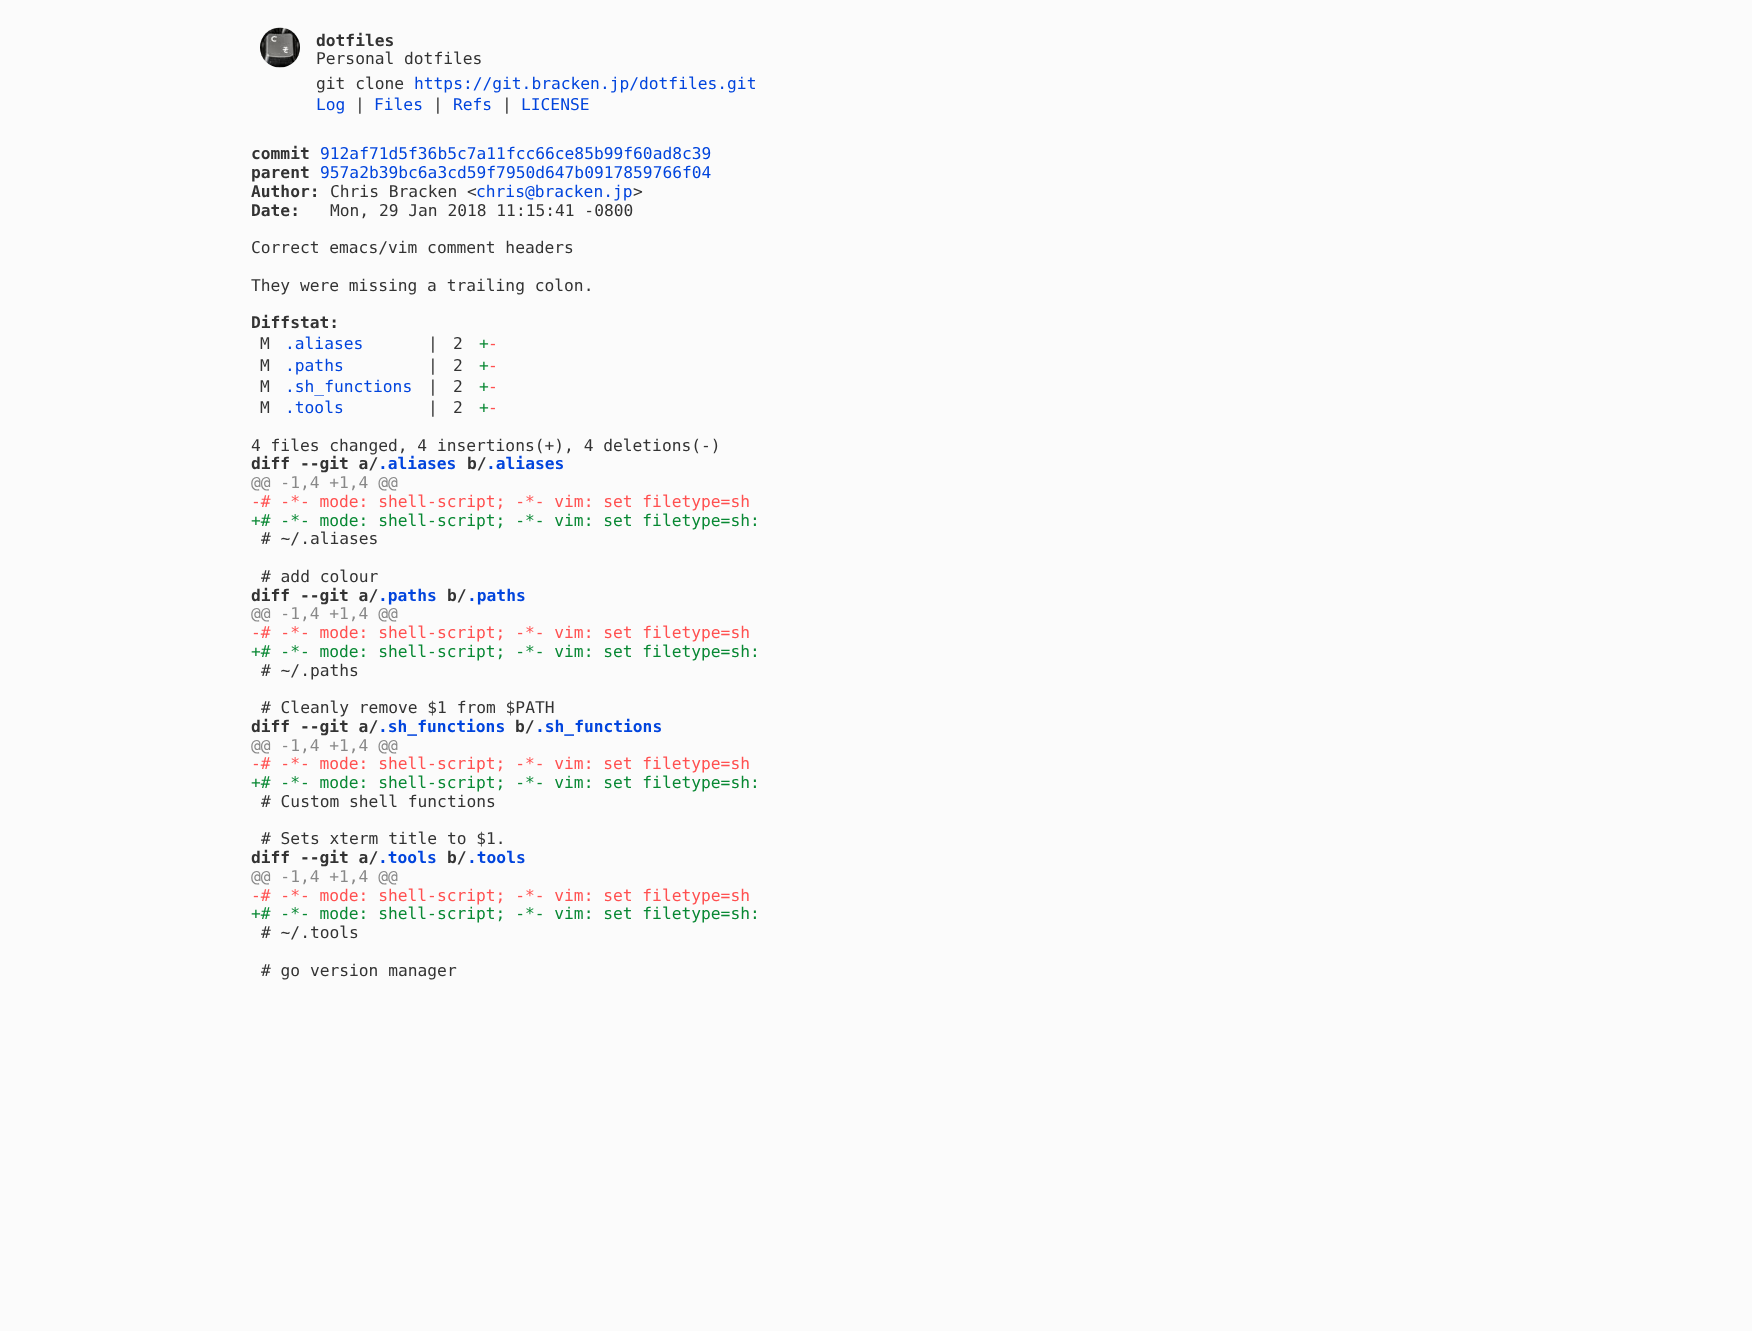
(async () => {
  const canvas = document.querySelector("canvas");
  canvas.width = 1752;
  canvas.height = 1331;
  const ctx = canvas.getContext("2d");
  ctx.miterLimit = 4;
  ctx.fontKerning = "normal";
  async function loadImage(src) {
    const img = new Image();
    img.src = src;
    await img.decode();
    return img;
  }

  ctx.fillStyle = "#fbfbfb";
  ctx.fillRect(0, 0, 1752, 1331);
  ctx.drawImage(await loadImage("img/1.png"), 260, 27, 40, 41);
  ctx.font = "bold 16.25px DejaVu Sans Mono";
  ctx.fillStyle = "#333333";
  ctx.fillText("dotfiles", 316, 46);
  ctx.font = "16.25px DejaVu Sans Mono";
  ctx.fillText("Personal dotfiles", 316, 64);
  ctx.fillText("git clone", 316, 89);
  ctx.fillStyle = "#0044dd";
  ctx.fillText("https://git.bracken.jp/dotfiles.git", 414, 89);
  ctx.fillText("Log", 316, 110);
  ctx.fillStyle = "#333333";
  ctx.fillText("|", 355, 110);
  ctx.fillStyle = "#0044dd";
  ctx.fillText("Files", 374, 110);
  ctx.fillStyle = "#333333";
  ctx.fillText("|", 433, 110);
  ctx.fillStyle = "#0044dd";
  ctx.fillText("Refs", 453, 110);
  ctx.fillStyle = "#333333";
  ctx.fillText("|", 502, 110);
  ctx.fillStyle = "#0044dd";
  ctx.fillText("LICENSE", 521, 110);
  ctx.font = "bold 16.25px DejaVu Sans Mono";
  ctx.fillStyle = "#333333";
  ctx.fillText("commit", 251, 159);
  ctx.font = "16.25px DejaVu Sans Mono";
  ctx.fillStyle = "#0044dd";
  ctx.fillText("912af71d5f36b5c7a11fcc66ce85b99f60ad8c39", 320, 159);
  ctx.font = "bold 16.25px DejaVu Sans Mono";
  ctx.fillStyle = "#333333";
  ctx.fillText("parent", 251, 178);
  ctx.font = "16.25px DejaVu Sans Mono";
  ctx.fillStyle = "#0044dd";
  ctx.fillText("957a2b39bc6a3cd59f7950d647b0917859766f04", 320, 178);
  ctx.font = "bold 16.25px DejaVu Sans Mono";
  ctx.fillStyle = "#333333";
  ctx.fillText("Author:", 251, 197);
  ctx.font = "16.25px DejaVu Sans Mono";
  ctx.fillText("Chris Bracken <", 330, 197);
  ctx.fillStyle = "#0044dd";
  ctx.fillText("chris@bracken.jp", 476, 197);
  ctx.fillStyle = "#333333";
  ctx.fillText(">", 633, 197);
  ctx.font = "bold 16.25px DejaVu Sans Mono";
  ctx.fillText("Date:", 251, 216);
  ctx.font = "16.25px DejaVu Sans Mono";
  for (const [text, x, y] of [
    ["Mon, 29 Jan 2018 11:15:41 -0800", 330, 216],
    ["Correct emacs/vim comment headers", 251, 253],
    ["They were missing a trailing colon.", 251, 291],
  ]) {
    ctx.fillText(text, x, y);
  }
  ctx.font = "bold 16.25px DejaVu Sans Mono";
  ctx.fillText("Diffstat:", 251, 328);
  ctx.font = "16.25px DejaVu Sans Mono";
  ctx.fillText("M", 260, 349);
  ctx.fillStyle = "#0044dd";
  ctx.fillText(".aliases", 285, 349);
  ctx.fillStyle = "#333333";
  ctx.fillText("|", 428, 349);
  ctx.fillText("2", 453, 349);
  ctx.fillStyle = "#088833";
  ctx.fillText("+", 479, 349);
  ctx.fillStyle = "#ff5050";
  ctx.fillText("-", 488, 349);
  ctx.fillStyle = "#333333";
  ctx.fillText("M", 260, 371);
  ctx.fillStyle = "#0044dd";
  ctx.fillText(".paths", 285, 371);
  ctx.fillStyle = "#333333";
  ctx.fillText("|", 428, 371);
  ctx.fillText("2", 453, 371);
  ctx.fillStyle = "#088833";
  ctx.fillText("+", 479, 371);
  ctx.fillStyle = "#ff5050";
  ctx.fillText("-", 488, 371);
  ctx.fillStyle = "#333333";
  ctx.fillText("M", 260, 392);
  ctx.fillStyle = "#0044dd";
  ctx.fillText(".sh_functions", 285, 392);
  ctx.fillStyle = "#333333";
  ctx.fillText("|", 428, 392);
  ctx.fillText("2", 453, 392);
  ctx.fillStyle = "#088833";
  ctx.fillText("+", 479, 392);
  ctx.fillStyle = "#ff5050";
  ctx.fillText("-", 488, 392);
  ctx.fillStyle = "#333333";
  ctx.fillText("M", 260, 413);
  ctx.fillStyle = "#0044dd";
  ctx.fillText(".tools", 285, 413);
  ctx.fillStyle = "#333333";
  ctx.fillText("|", 428, 413);
  ctx.fillText("2", 453, 413);
  ctx.fillStyle = "#088833";
  ctx.fillText("+", 479, 413);
  ctx.fillStyle = "#ff5050";
  ctx.fillText("-", 488, 413);
  ctx.fillStyle = "#333333";
  ctx.fillText("4 files changed, 4 insertions(+), 4 deletions(-)", 251, 451);
  ctx.font = "bold 16.25px DejaVu Sans Mono";
  ctx.fillText("diff --git a/", 251, 469);
  ctx.fillStyle = "#0044dd";
  ctx.fillText(".aliases", 378, 469);
  ctx.fillStyle = "#333333";
  ctx.fillText("b/", 467, 469);
  ctx.fillStyle = "#0044dd";
  ctx.fillText(".aliases", 486, 469);
  ctx.font = "16.25px DejaVu Sans Mono";
  ctx.fillStyle = "#888888";
  ctx.fillText("@@ -1,4 +1,4 @@", 251, 488);
  ctx.fillStyle = "#ff5050";
  ctx.fillText("-# -*- mode: shell-script; -*- vim: set filetype=sh", 251, 507);
  ctx.fillStyle = "#088833";
  ctx.fillText("+# -*- mode: shell-script; -*- vim: set filetype=sh:", 251, 526);
  ctx.fillStyle = "#333333";
  ctx.fillText("# ~/.aliases", 261, 544);
  ctx.fillText("# add colour", 261, 582);
  ctx.font = "bold 16.25px DejaVu Sans Mono";
  ctx.fillText("diff --git a/", 251, 601);
  ctx.fillStyle = "#0044dd";
  ctx.fillText(".paths", 378, 601);
  ctx.fillStyle = "#333333";
  ctx.fillText("b/", 447, 601);
  ctx.fillStyle = "#0044dd";
  ctx.fillText(".paths", 467, 601);
  ctx.font = "16.25px DejaVu Sans Mono";
  ctx.fillStyle = "#888888";
  ctx.fillText("@@ -1,4 +1,4 @@", 251, 619);
  ctx.fillStyle = "#ff5050";
  ctx.fillText("-# -*- mode: shell-script; -*- vim: set filetype=sh", 251, 638);
  ctx.fillStyle = "#088833";
  ctx.fillText("+# -*- mode: shell-script; -*- vim: set filetype=sh:", 251, 657);
  ctx.fillStyle = "#333333";
  ctx.fillText("# ~/.paths", 261, 676);
  ctx.fillText("# Cleanly remove $1 from $PATH", 261, 713);
  ctx.font = "bold 16.25px DejaVu Sans Mono";
  ctx.fillText("diff --git a/", 251, 732);
  ctx.fillStyle = "#0044dd";
  ctx.fillText(".sh_functions", 378, 732);
  ctx.fillStyle = "#333333";
  ctx.fillText("b/", 515, 732);
  ctx.fillStyle = "#0044dd";
  ctx.fillText(".sh_functions", 535, 732);
  ctx.font = "16.25px DejaVu Sans Mono";
  ctx.fillStyle = "#888888";
  ctx.fillText("@@ -1,4 +1,4 @@", 251, 751);
  ctx.fillStyle = "#ff5050";
  ctx.fillText("-# -*- mode: shell-script; -*- vim: set filetype=sh", 251, 769);
  ctx.fillStyle = "#088833";
  ctx.fillText("+# -*- mode: shell-script; -*- vim: set filetype=sh:", 251, 788);
  ctx.fillStyle = "#333333";
  ctx.fillText("# Custom shell functions", 261, 807);
  ctx.fillText("# Sets xterm title to $1.", 261, 844);
  ctx.font = "bold 16.25px DejaVu Sans Mono";
  ctx.fillText("diff --git a/", 251, 863);
  ctx.fillStyle = "#0044dd";
  ctx.fillText(".tools", 378, 863);
  ctx.fillStyle = "#333333";
  ctx.fillText("b/", 447, 863);
  ctx.fillStyle = "#0044dd";
  ctx.fillText(".tools", 467, 863);
  ctx.font = "16.25px DejaVu Sans Mono";
  ctx.fillStyle = "#888888";
  ctx.fillText("@@ -1,4 +1,4 @@", 251, 882);
  ctx.fillStyle = "#ff5050";
  ctx.fillText("-# -*- mode: shell-script; -*- vim: set filetype=sh", 251, 901);
  ctx.fillStyle = "#088833";
  ctx.fillText("+# -*- mode: shell-script; -*- vim: set filetype=sh:", 251, 919);
  ctx.fillStyle = "#333333";
  ctx.fillText("# ~/.tools", 261, 938);
  ctx.fillText("# go version manager", 261, 976);
})();
